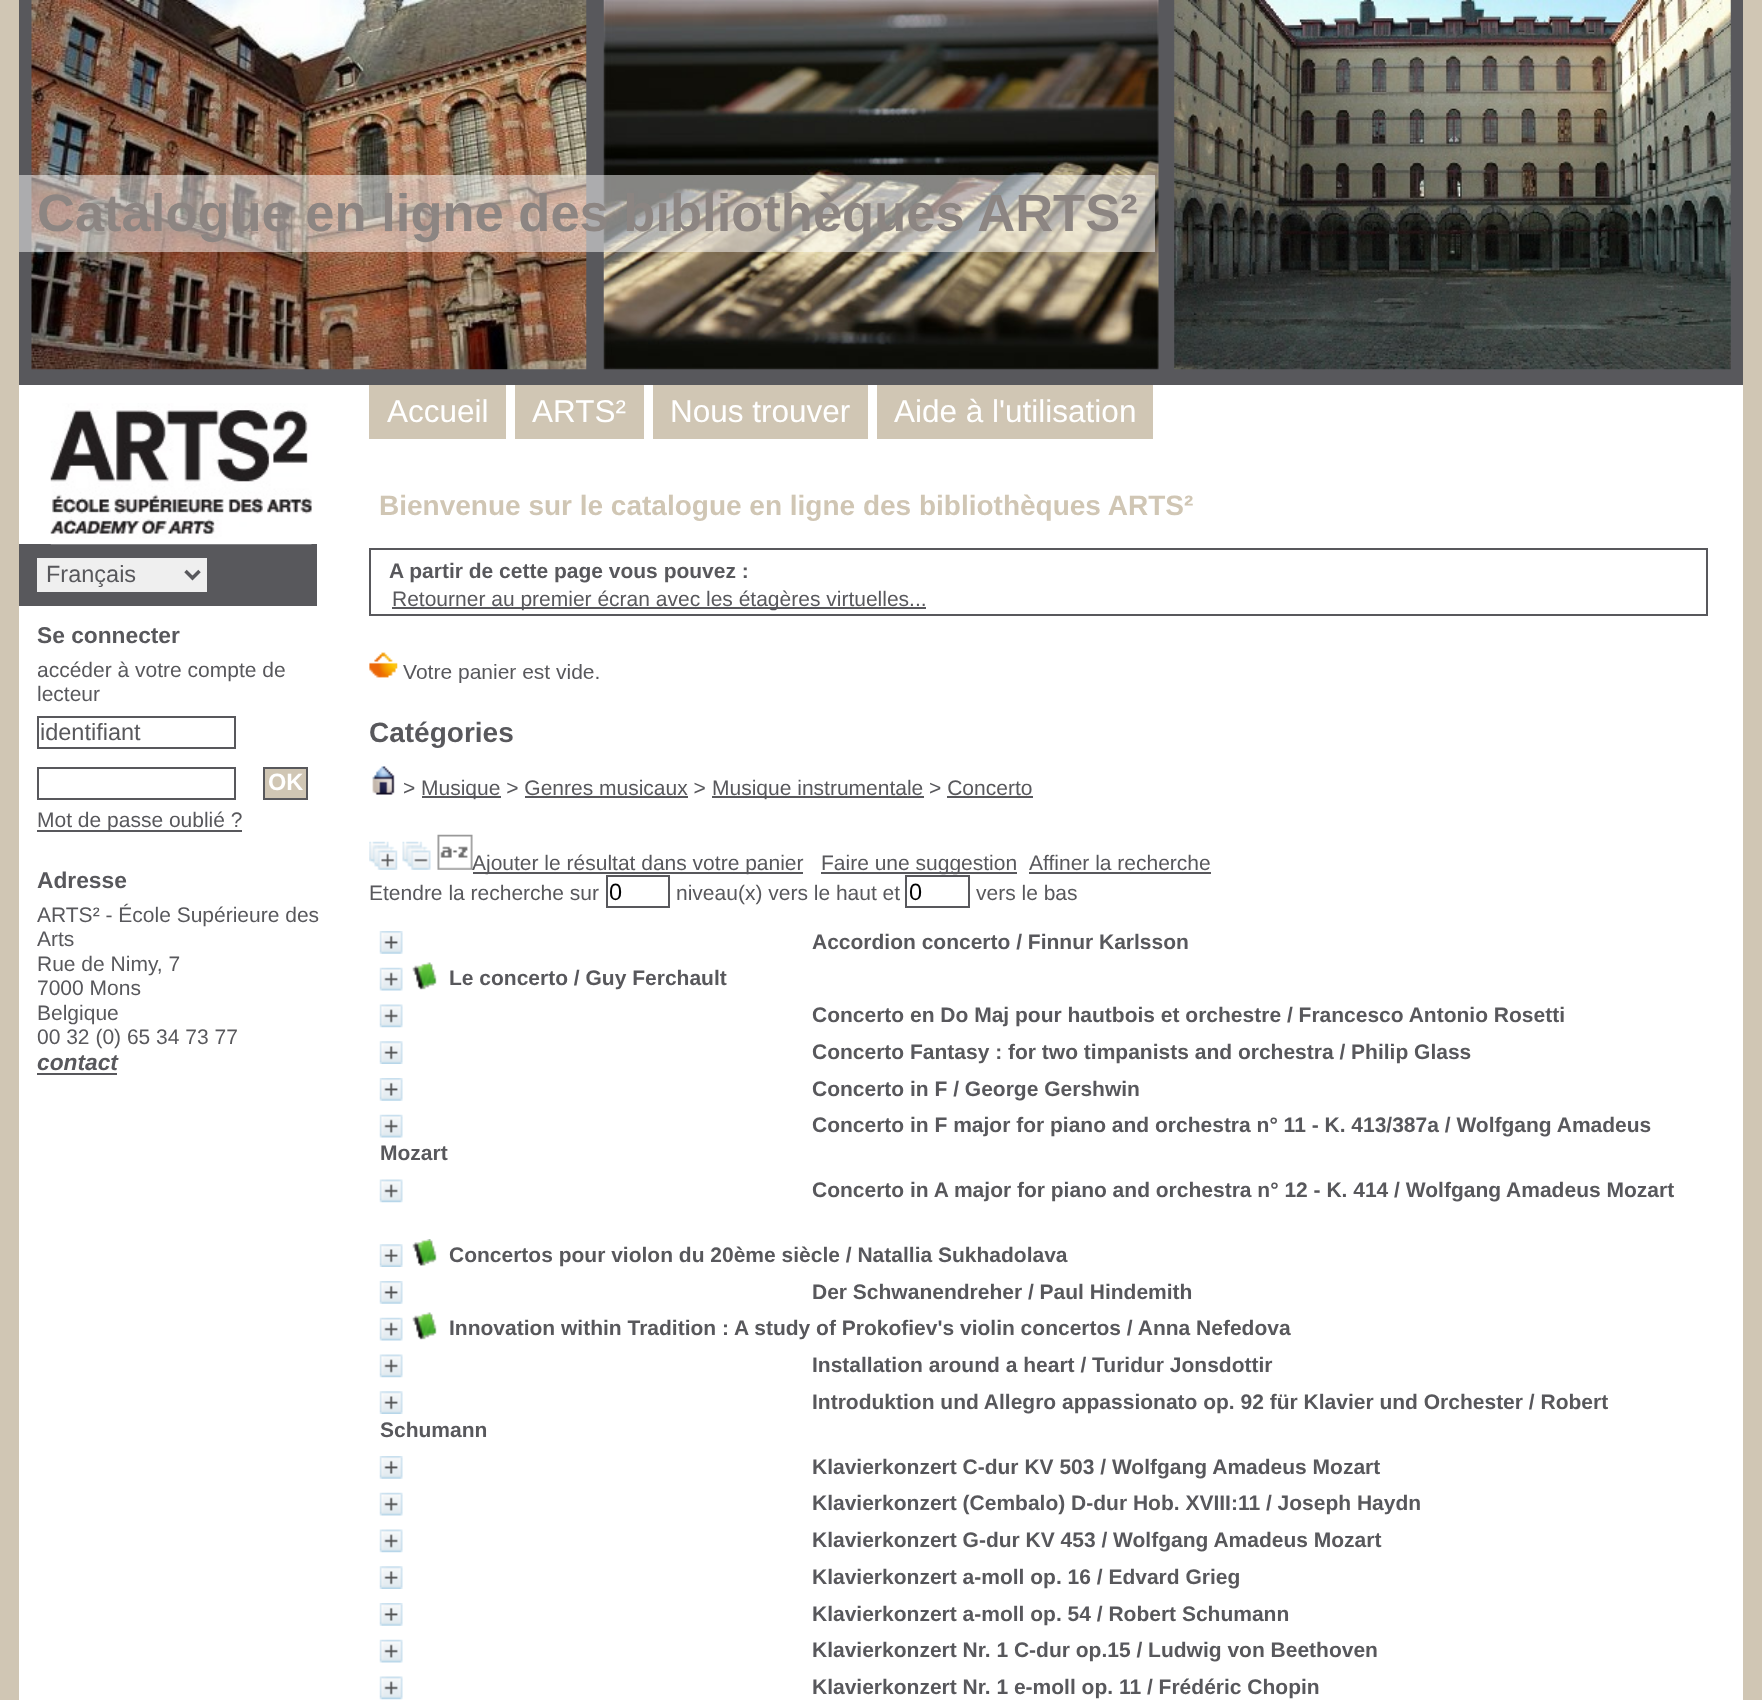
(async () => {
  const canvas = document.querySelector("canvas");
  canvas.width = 1762;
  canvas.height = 1700;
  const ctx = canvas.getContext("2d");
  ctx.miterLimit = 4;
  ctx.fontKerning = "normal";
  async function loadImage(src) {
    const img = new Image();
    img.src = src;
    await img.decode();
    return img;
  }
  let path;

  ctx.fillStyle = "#d0c6b4";
  ctx.fillRect(0, 0, 1762, 1700);
  ctx.fillStyle = "#ffffff";
  ctx.fillRect(19, 385, 1724, 1315);
  ctx.fillStyle = "#58585c";
  ctx.fillRect(19, 0, 1724, 385);
  ctx.drawImage(await loadImage("img/12.png"), 31, 0, 556, 370);
  ctx.drawImage(await loadImage("img/13.png"), 603, 0, 556, 370);
  ctx.fillStyle = "rgba(255, 255, 255, 0.5)";
  ctx.fillRect(19, 175, 1136, 77);
  ctx.strokeStyle = "#58585c";
  ctx.lineWidth = 2;
  ctx.strokeRect(370, 549, 1337, 66);
  ctx.fillStyle = "#58585c";
  ctx.fillRect(392, 607, 534, 2);
  ctx.drawImage(await loadImage("img/1.png"), 369, 652, 230, 31);
  ctx.drawImage(await loadImage("img/2.png"), 372, 766, 23, 29);
  for (const [x, y, w, h, color] of [
    [422, 796, 79, 2, "#58585c"],
    [712, 796, 212, 2, "#58585c"],
    [525, 796, 163, 2, "#58585c"],
    [947, 796, 86, 2, "#58585c"],
  ]) {
    ctx.fillStyle = color;
    ctx.fillRect(x, y, w, h);
  }
  ctx.drawImage(await loadImage("img/3.png"), 369, 841, 29, 29);
  ctx.drawImage(await loadImage("img/4.png"), 402, 841, 29, 29);
  ctx.drawImage(await loadImage("img/5.png"), 437, 834, 36, 36);
  for (const [x, y, w, h, color] of [
    [473, 872, 330, 2, "#58585c"],
    [821, 872, 196, 2, "#58585c"],
    [1029, 872, 182, 2, "#58585c"],
  ]) {
    ctx.fillStyle = color;
    ctx.fillRect(x, y, w, h);
  }
  ctx.strokeRect(607, 876, 62, 31);
  ctx.strokeRect(906, 876, 63, 31);
  ctx.drawImage(await loadImage("img/6.png"), 379, 931, 24, 23);
  ctx.drawImage(await loadImage("img/7.png"), 379, 967, 24, 24);
  ctx.drawImage(await loadImage("img/8.png"), 412, 962, 25, 28);
  ctx.drawImage(await loadImage("img/9.png"), 379, 1004, 24, 24);
  ctx.drawImage(await loadImage("img/10.png"), 379, 1041, 24, 23);
  ctx.drawImage(await loadImage("img/6.png"), 379, 1078, 24, 23);
  ctx.drawImage(await loadImage("img/7.png"), 379, 1114, 24, 24);
  ctx.drawImage(await loadImage("img/9.png"), 379, 1179, 24, 24);
  ctx.drawImage(await loadImage("img/10.png"), 379, 1244, 24, 23);
  ctx.drawImage(await loadImage("img/11.png"), 412, 1239, 25, 27);
  ctx.drawImage(await loadImage("img/6.png"), 379, 1281, 24, 23);
  ctx.drawImage(await loadImage("img/7.png"), 379, 1317, 24, 24);
  ctx.drawImage(await loadImage("img/8.png"), 412, 1312, 25, 28);
  ctx.drawImage(await loadImage("img/9.png"), 379, 1354, 24, 24);
  ctx.drawImage(await loadImage("img/10.png"), 379, 1391, 24, 23);
  ctx.drawImage(await loadImage("img/6.png"), 379, 1456, 24, 23);
  ctx.drawImage(await loadImage("img/7.png"), 379, 1492, 24, 24);
  ctx.drawImage(await loadImage("img/9.png"), 379, 1529, 24, 24);
  ctx.drawImage(await loadImage("img/10.png"), 379, 1566, 24, 23);
  ctx.drawImage(await loadImage("img/6.png"), 379, 1603, 24, 23);
  ctx.drawImage(await loadImage("img/7.png"), 379, 1639, 24, 24);
  ctx.drawImage(await loadImage("img/9.png"), 379, 1676, 24, 24);
  ctx.drawImage(await loadImage("img/14.png"), 1174, 0, 557, 370);
  for (const [x, y, w, h, color] of [
    [369, 385, 137, 54, "#d0c6b4"],
    [515, 385, 129, 54, "#d0c6b4"],
    [653, 385, 215, 54, "#d0c6b4"],
    [877, 385, 276, 54, "#d0c6b4"],
    [19, 544, 298, 62, "#58585c"],
  ]) {
    ctx.fillStyle = color;
    ctx.fillRect(x, y, w, h);
  }
  ctx.drawImage(await loadImage("img/15.png"), 50, 403, 262, 142);
  ctx.fillStyle = "#efefef";
  ctx.fillRect(37, 558, 170, 34);
  path = new Path2D("M185.5 571L192.5 578L199.5 571");
  ctx.lineWidth = 3.5;
  ctx.stroke(path);
  ctx.lineWidth = 2;
  ctx.strokeRect(38, 717, 197, 31);
  ctx.strokeRect(38, 768, 197, 31);
  ctx.fillStyle = "#d0c6b4";
  ctx.beginPath();
  ctx.rect(264, 768, 43, 31);
  ctx.fill();
  ctx.stroke();
  ctx.fillStyle = "#58585c";
  ctx.fillRect(37, 830, 205, 2);
  ctx.fillRect(37, 1073, 80, 2);
  ctx.font = "bold 52.5px Liberation Sans";
  ctx.fillStyle = "#8c8582";
  ctx.fillText("Catalogue en ligne des bibliothèques ARTS²", 37, 231);
  ctx.font = "bold 28px Liberation Sans";
  ctx.fillStyle = "#d0c6b4";
  ctx.fillText("Bienvenue sur le catalogue en ligne des bibliothèques ARTS²", 379, 515);
  ctx.font = "bold 21px Liberation Sans";
  ctx.fillStyle = "#58585c";
  ctx.fillText("A partir de cette page vous pouvez :", 389, 578);
  ctx.font = "21px Liberation Sans";
  ctx.fillText("Retourner au premier écran avec les étagères virtuelles...", 392, 606);
  ctx.font = "bold 28px Liberation Sans";
  ctx.fillText("Catégories", 369, 742);
  ctx.font = "21px Liberation Sans";
  for (const [text, x, y] of [
    [">", 403, 795],
    ["Musique > Genres musicaux >", 421, 795],
    ["Musique instrumentale > Concerto", 712, 795],
    ["Ajouter le résultat dans votre panier", 472, 870],
    ["Faire une suggestion", 821, 870],
    ["Affiner la recherche", 1029, 870],
    ["Etendre la recherche sur", 369, 900],
  ]) {
    ctx.fillText(text, x, y);
  }
  ctx.font = "23.5px Liberation Sans";
  ctx.fillStyle = "#000000";
  ctx.fillText("0", 609, 900);
  ctx.font = "21px Liberation Sans";
  ctx.fillStyle = "#58585c";
  ctx.fillText("niveau(x) vers le haut et", 676, 900);
  ctx.font = "23.5px Liberation Sans";
  ctx.fillStyle = "#000000";
  ctx.fillText("0", 909, 900);
  ctx.font = "21px Liberation Sans";
  ctx.fillStyle = "#58585c";
  ctx.fillText("vers le bas", 976, 900);
  ctx.font = "bold 21px Liberation Sans";
  for (const [text, x, y] of [
    ["Accordion concerto / Finnur Karlsson", 812, 949],
    ["Le concerto / Guy Ferchault", 449, 985],
    ["Concerto en Do Maj pour hautbois et orchestre / Francesco Antonio Rosetti", 812, 1022],
    ["Concerto Fantasy : for two timpanists and orchestra / Philip Glass", 812, 1059],
    ["Concerto in F / George Gershwin", 812, 1096],
    ["Concerto in F major for piano and orchestra n° 11 - K. 413/387a / Wolfgang Amadeus", 812, 1132],
    ["Mozart", 380, 1160],
    ["Concerto in A major for piano and orchestra n° 12 - K. 414 / Wolfgang Amadeus Mozart", 812, 1197],
    ["Concertos pour violon du 20ème siècle / Natallia Sukhadolava", 449, 1262],
    ["Der Schwanendreher / Paul Hindemith", 812, 1299],
    ["Innovation within Tradition : A study of Prokofiev's violin concertos / Anna Nefedova", 449, 1335],
    ["Installation around a heart / Turidur Jonsdottir", 812, 1372],
    ["Introduktion und Allegro appassionato op. 92 für Klavier und Orchester / Robert", 812, 1409],
    ["Schumann", 380, 1437],
    ["Klavierkonzert C-dur KV 503 / Wolfgang Amadeus Mozart", 812, 1474],
    ["Klavierkonzert (Cembalo) D-dur Hob. XVIII:11 / Joseph Haydn", 812, 1510],
    ["Klavierkonzert G-dur KV 453 / Wolfgang Amadeus Mozart", 812, 1547],
    ["Klavierkonzert a-moll op. 16 / Edvard Grieg", 812, 1584],
    ["Klavierkonzert a-moll op. 54 / Robert Schumann", 812, 1621],
    ["Klavierkonzert Nr. 1 C-dur op.15 / Ludwig von Beethoven", 812, 1657],
    ["Klavierkonzert Nr. 1 e-moll op. 11 / Frédéric Chopin", 812, 1694],
  ]) {
    ctx.fillText(text, x, y);
  }
  ctx.font = "31.5px Liberation Sans";
  ctx.fillStyle = "#ffffff";
  for (const [text, x, y] of [
    ["Accueil", 387, 422],
    ["ARTS²", 532, 422],
    ["Nous trouver", 670, 422],
    ["Aide à l'utilisation", 894, 422],
  ]) {
    ctx.fillText(text, x, y);
  }
  ctx.font = "23.5px Liberation Sans";
  ctx.fillStyle = "#58585c";
  ctx.fillText("Français", 46, 582);
  ctx.font = "bold 22.75px Liberation Sans";
  ctx.fillText("Se connecter", 37, 643);
  ctx.font = "21px Liberation Sans";
  ctx.fillText("accéder à votre compte de", 37, 677);
  ctx.fillText("lecteur", 37, 701);
  ctx.font = "23.5px Liberation Sans";
  ctx.fillText("identifiant", 40, 740);
  ctx.font = "bold 23.5px Liberation Sans";
  ctx.fillStyle = "#ffffff";
  ctx.fillText("OK", 268, 790);
  ctx.font = "21px Liberation Sans";
  ctx.fillStyle = "#58585c";
  ctx.fillText("Mot de passe oublié ?", 37, 827);
  ctx.font = "bold 22.75px Liberation Sans";
  ctx.fillText("Adresse", 37, 888);
  ctx.font = "21px Liberation Sans";
  for (const [text, x, y] of [
    ["ARTS² - École Supérieure des", 37, 922],
    ["Arts", 37, 946],
    ["Rue de Nimy, 7", 37, 971],
    ["7000 Mons", 37, 995],
    ["Belgique", 37, 1020],
    ["00 32 (0) 65 34 73 77", 37, 1044],
  ]) {
    ctx.fillText(text, x, y);
  }
  ctx.font = "italic bold 22.75px Liberation Sans";
  ctx.fillText("contact", 37, 1070);
})();
